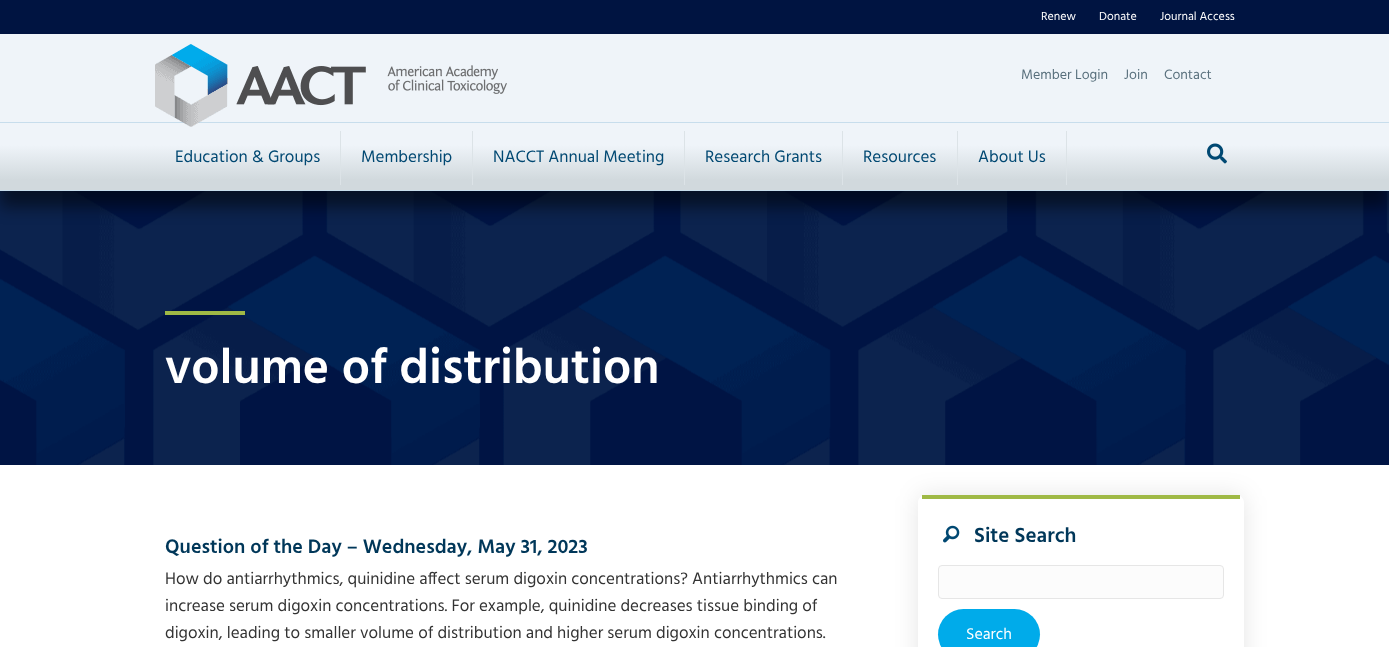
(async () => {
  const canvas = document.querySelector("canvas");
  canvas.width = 1389;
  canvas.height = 647;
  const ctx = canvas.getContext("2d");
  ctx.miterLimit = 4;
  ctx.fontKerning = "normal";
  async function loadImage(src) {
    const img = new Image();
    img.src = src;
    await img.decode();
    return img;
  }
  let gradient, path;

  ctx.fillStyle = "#ffffff";
  ctx.fillRect(0, 0, 1389, 647);
  ctx.fillStyle = "#001441";
  ctx.fillRect(0, 0, 1389, 34);
  ctx.drawImage(await loadImage("img/3.png"), 0, 191, 1389, 274);
  ctx.fillStyle = "rgba(0, 0, 0, 0.5)";
  ctx.filter = "blur(8px)";
  ctx.beginPath();
  ctx.rect(0, 50, 1389, 157);
  ctx.fill();
  ctx.filter = "none";
  ctx.fillStyle = "#eff4f9";
  ctx.fillRect(0, 34, 1389, 88);
  gradient = ctx.createLinearGradient(695, 190, 695, 123);
  gradient.addColorStop(0.15, "#d1d9dd");
  gradient.addColorStop(0.67, "#eff4f9");
  ctx.fillStyle = gradient;
  ctx.fillRect(0, 123, 1389, 67);
  ctx.fillStyle = "#c7ddec";
  ctx.fillRect(0, 122, 1389, 1);
  ctx.drawImage(await loadImage("img/1.png"), 155, 44, 352, 83);
  for (const [x, y, w, h, color] of [
    [0, 190, 1389, 1, "#c7ddec"],
    [340, 131, 1, 54, "#dce3e7"],
    [472, 131, 1, 54, "#dce3e7"],
    [684, 131, 1, 54, "#dce3e7"],
    [842, 131, 1, 54, "#dce3e7"],
    [957, 131, 1, 54, "#dce3e7"],
    [1066, 131, 1, 54, "#dce3e7"],
  ]) {
    ctx.fillStyle = color;
    ctx.fillRect(x, y, w, h);
  }
  ctx.drawImage(await loadImage("img/2.png"), 1207, 143, 20, 21);
  ctx.fillStyle = "#9fb945";
  ctx.fillRect(165, 311, 80, 4);
  ctx.save();
  path = new Path2D("M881 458H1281V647H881ZM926 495H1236C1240.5 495 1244 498.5 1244 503V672C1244 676.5 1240.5 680 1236 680H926C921.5 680 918 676.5 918 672V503C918 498.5 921.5 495 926 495Z");
  ctx.clip(path, "evenodd");
  ctx.fillStyle = "rgba(0, 0, 0, 0.1)";
  ctx.filter = "blur(12px)";
  ctx.beginPath();
  ctx.roundRect(918, 495, 326, 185, 8);
  ctx.fill();
  ctx.filter = "none";
  ctx.restore();
  ctx.fillRect(922, 495, 318, 4);
  ctx.drawImage(await loadImage("img/4.png"), 943, 525, 17, 18);
  ctx.fillStyle = "#fcfcfc";
  ctx.beginPath();
  ctx.roundRect(938.5, 565.5, 285, 33, 3.5);
  ctx.fill();
  ctx.strokeStyle = "#e6e6e6";
  ctx.stroke();
  ctx.fillStyle = "#00abea";
  ctx.beginPath();
  ctx.roundRect(938, 609, 102, 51, 25.5);
  ctx.fill();
  ctx.font = "12px Hind";
  ctx.fillStyle = "#ffffff";
  for (const [text, x, y] of [
    ["Renew", 1041, 20],
    ["Donate", 1099, 20],
    ["Journal Access", 1160, 20],
  ]) {
    ctx.fillText(text, x, y);
  }
  ctx.font = "14px Hind";
  ctx.fillStyle = "#59707d";
  for (const [text, x, y] of [
    ["Member Login", 1021, 79],
    ["Join", 1124, 79],
    ["Contact", 1164, 79],
  ]) {
    ctx.fillText(text, x, y);
  }
  ctx.font = "17px Hind";
  ctx.fillStyle = "#004872";
  for (const [text, x, y] of [
    ["Education & Groups", 175, 162],
    ["Membership", 361, 162],
    ["NACCT Annual Meeting", 493, 162],
    ["Research Grants", 705, 162],
    ["Resources", 863, 162],
    ["About Us", 978, 162],
  ]) {
    ctx.fillText(text, x, y);
  }
  ctx.font = "600 50px Hind";
  ctx.fillStyle = "#ffffff";
  ctx.fillText("volume of distribution", 165, 383);
  ctx.font = "600 20px Hind";
  ctx.fillStyle = "#003759";
  ctx.fillText("Question of the Day – Wednesday, May 31, 2023", 165, 553);
  ctx.font = "17px Hind";
  ctx.fillStyle = "#333333";
  for (const [text, x, y] of [
    ["How do antiarrhythmics, quinidine affect serum digoxin concentrations? Antiarrhythmics can", 165, 584],
    ["increase serum digoxin concentrations. For example, quinidine decreases tissue binding of", 165, 611],
    ["digoxin, leading to smaller volume of distribution and higher serum digoxin concentrations.", 165, 638],
  ]) {
    ctx.fillText(text, x, y);
  }
  ctx.font = "600 21px Hind";
  ctx.fillStyle = "#003759";
  ctx.fillText("Site Search", 974, 542);
  ctx.font = "16px Hind";
  ctx.fillStyle = "#ffffff";
  ctx.fillText("Search", 966, 639);
})();
